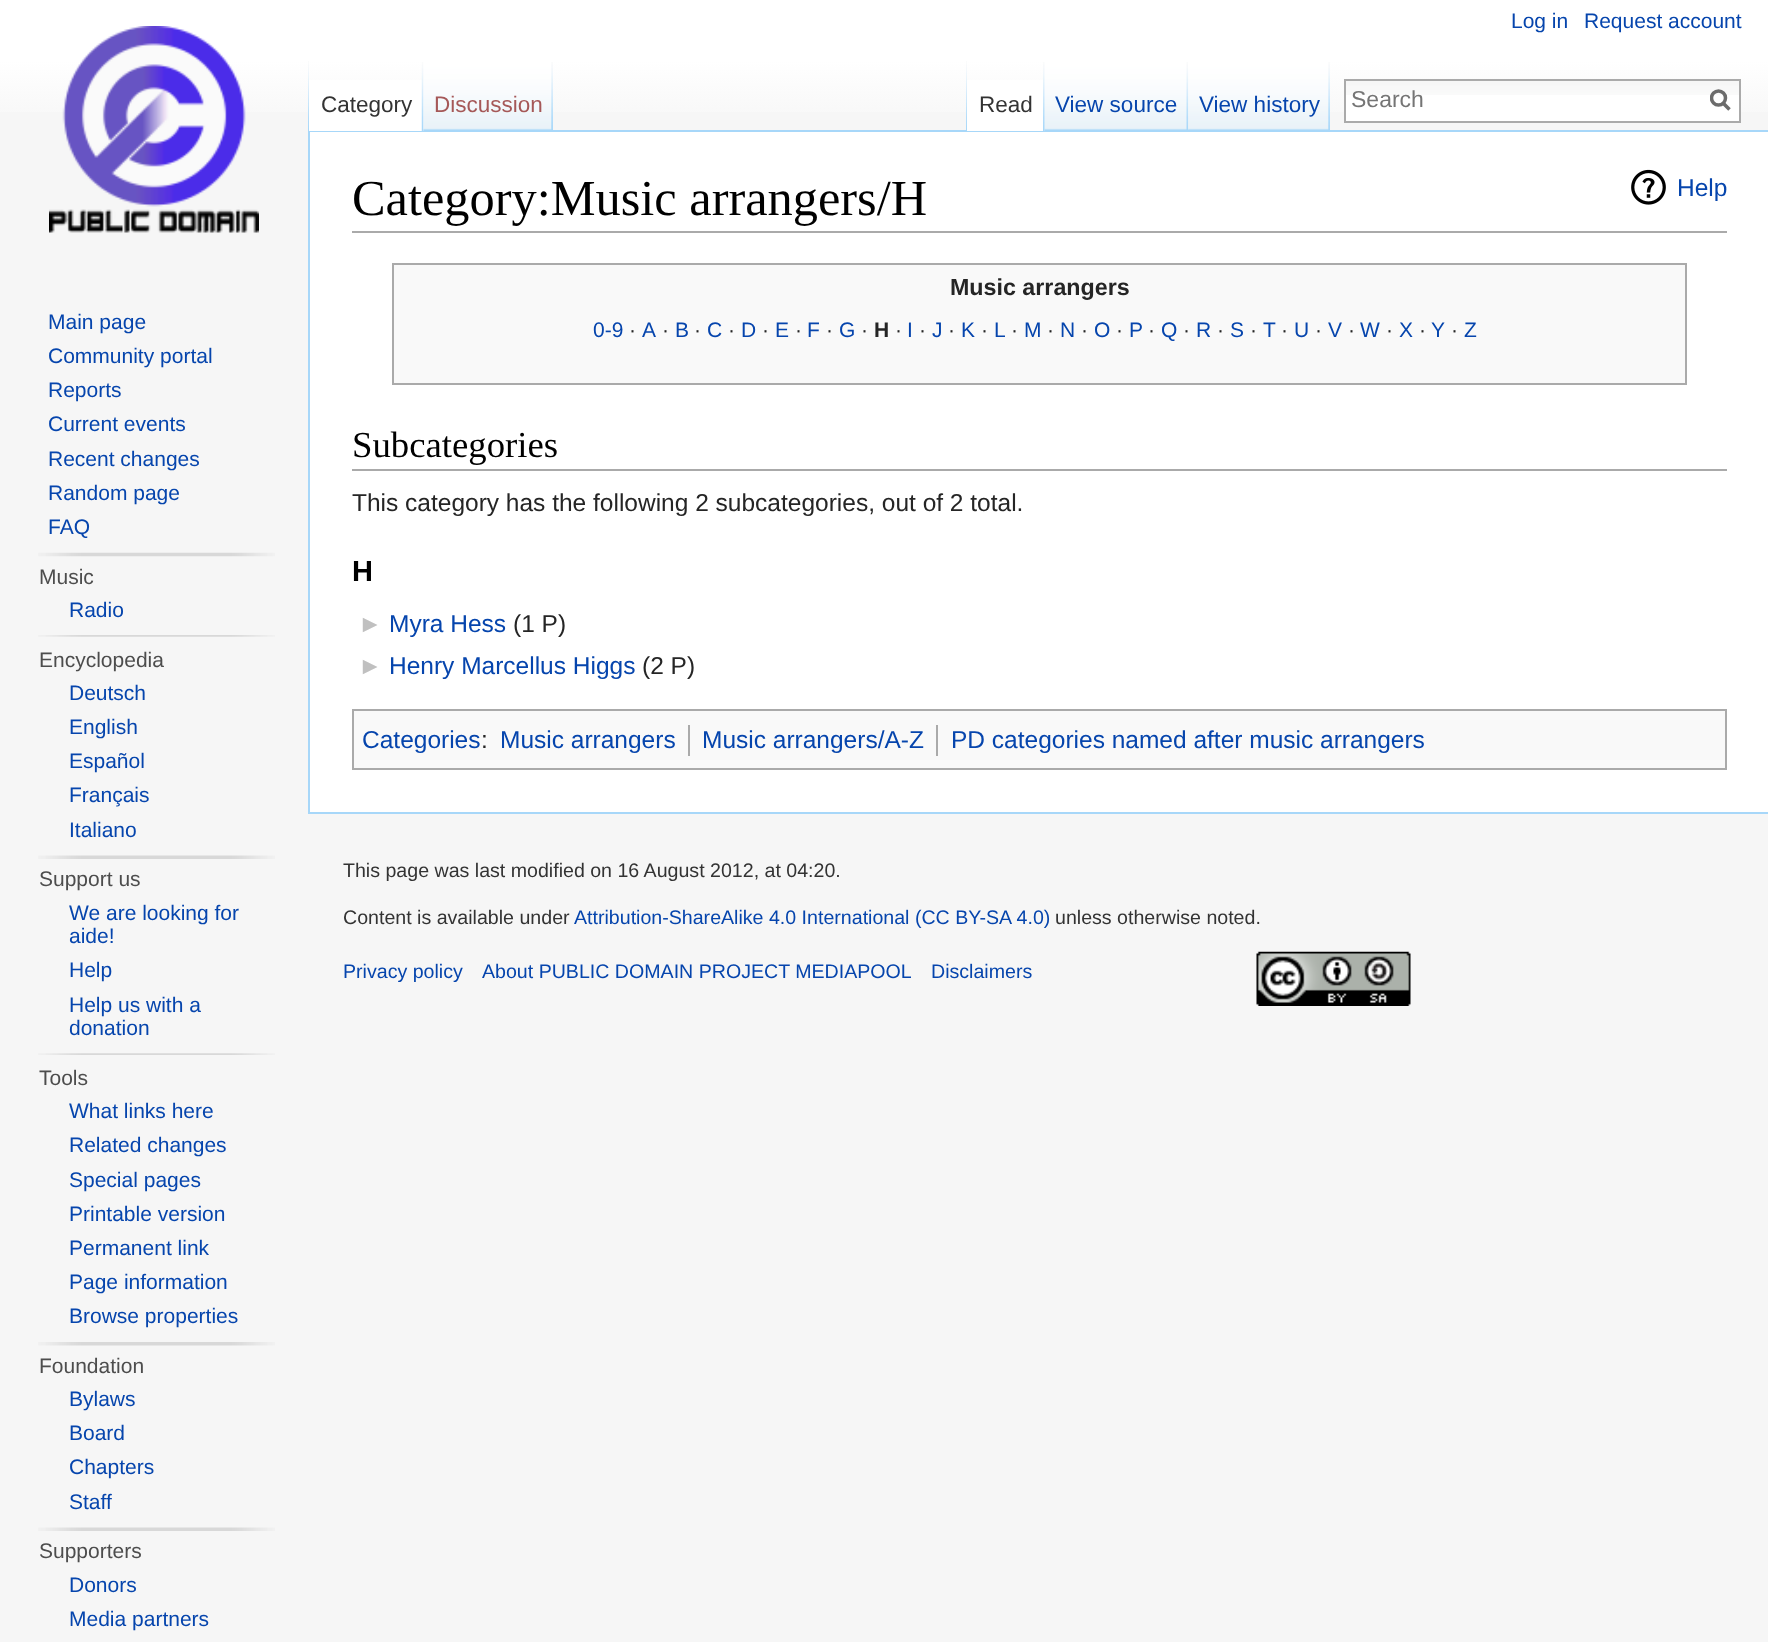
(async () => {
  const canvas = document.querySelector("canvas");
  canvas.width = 1768;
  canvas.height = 1642;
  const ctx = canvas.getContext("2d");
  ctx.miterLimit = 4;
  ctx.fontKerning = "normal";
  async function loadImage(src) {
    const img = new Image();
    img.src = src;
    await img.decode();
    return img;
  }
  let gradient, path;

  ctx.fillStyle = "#f6f6f6";
  ctx.fillRect(0, 0, 1768, 1642);
  gradient = ctx.createLinearGradient(885, -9, 885, 131);
  gradient.addColorStop(0.5, "#ffffff");
  gradient.addColorStop(1, "#f6f6f6");
  ctx.fillStyle = gradient;
  ctx.fillRect(0, 0, 1768, 112);
  ctx.drawImage(await loadImage("img/1.png"), 308, 61, 1, 69);
  for (const [x, y, w, h, color] of [
    [308, 130, 1460, 2, "#a7d7f9"],
    [308, 812, 1460, 2, "#a7d7f9"],
    [308, 130, 2, 684, "#a7d7f9"],
    [309, 80, 115, 51, "#ffffff"],
  ]) {
    ctx.fillStyle = color;
    ctx.fillRect(x, y, w, h);
  }
  ctx.drawImage(await loadImage("img/2.png"), 421, 62, 3, 69);
  ctx.drawImage(await loadImage("img/3.png"), 423, 61, 130, 70);
  ctx.drawImage(await loadImage("img/4.png"), 551, 62, 2, 68);
  ctx.drawImage(await loadImage("img/1.png"), 966, 61, 1, 69);
  ctx.fillRect(967, 80, 78, 51);
  ctx.drawImage(await loadImage("img/5.png"), 1043, 62, 2, 69);
  ctx.drawImage(await loadImage("img/6.png"), 1044, 61, 145, 70);
  ctx.drawImage(await loadImage("img/7.png"), 1186, 62, 3, 68);
  ctx.drawImage(await loadImage("img/8.png"), 1188, 61, 142, 70);
  ctx.drawImage(await loadImage("img/4.png"), 1328, 62, 2, 68);
  ctx.fillRect(1346, 95, 393, 26);
  ctx.drawImage(await loadImage("img/9.png"), 1346, 81, 393, 14);
  ctx.strokeStyle = "#aaaaaa";
  ctx.lineWidth = 2;
  ctx.strokeRect(1345, 80, 395, 42);
  path = new Path2D("M1729.5 109.5L1722.5 102.5");
  ctx.strokeStyle = "#6c6c6c";
  ctx.lineWidth = 3.5;
  ctx.stroke(path);
  ctx.save();
  ctx.beginPath();
  ctx.rect(1710, 89, 21, 23);
  ctx.clip();
  ctx.beginPath();
  ctx.arc(1718.5, 98, 7, 0, Math.PI * 2);
  ctx.stroke();
  ctx.restore();
  ctx.drawImage(await loadImage("img/10.png"), 49, 26, 210, 207);
  ctx.drawImage(await loadImage("img/11.png"), 38, 552, 237, 5);
  ctx.drawImage(await loadImage("img/12.png"), 38, 635, 237, 2);
  ctx.drawImage(await loadImage("img/13.png"), 38, 855, 237, 4);
  ctx.drawImage(await loadImage("img/14.png"), 38, 1053, 237, 2);
  ctx.drawImage(await loadImage("img/15.png"), 38, 1342, 237, 4);
  ctx.drawImage(await loadImage("img/13.png"), 38, 1527, 237, 4);
  ctx.fillRect(310, 132, 1458, 680);
  ctx.fillStyle = "#aaaaaa";
  ctx.fillRect(352, 231, 1375, 2);
  ctx.drawImage(await loadImage("img/16.png"), 1631, 169, 35, 36);
  ctx.fillStyle = "#f9f9f9";
  ctx.beginPath();
  ctx.rect(393, 264, 1293, 120);
  ctx.fill();
  ctx.strokeStyle = "#aaaaaa";
  ctx.lineWidth = 2;
  ctx.stroke();
  ctx.fillStyle = "#aaaaaa";
  ctx.fillRect(352, 469, 1375, 2);
  ctx.fillStyle = "#f9f9f9";
  ctx.beginPath();
  ctx.rect(353, 710, 1373, 59);
  ctx.fill();
  ctx.stroke();
  ctx.fillStyle = "#aaaaaa";
  ctx.fillRect(688, 725, 2, 31);
  ctx.fillRect(936, 725, 2, 31);
  ctx.drawImage(await loadImage("img/17.png"), 1256, 951, 155, 55);
  ctx.font = "21px Liberation Sans";
  ctx.fillStyle = "#0645ad";
  ctx.fillText("Log in", 1511, 28);
  ctx.fillText("Request account", 1584, 28);
  ctx.font = "22.5px Liberation Sans";
  ctx.fillStyle = "#333333";
  ctx.fillText("Category", 321, 112);
  ctx.fillStyle = "#a55858";
  ctx.fillText("Discussion", 434, 112);
  ctx.fillStyle = "#333333";
  ctx.fillText("Read", 979, 112);
  ctx.fillStyle = "#0645ad";
  ctx.fillText("View source", 1055, 112);
  ctx.fillText("View history", 1199, 112);
  ctx.font = "23px Liberation Sans";
  ctx.fillStyle = "#757575";
  ctx.fillText("Search", 1351, 107);
  ctx.font = "21px Liberation Sans";
  ctx.fillStyle = "#0645ad";
  for (const [text, x, y] of [
    ["Main page", 48, 329],
    ["Community portal", 48, 363],
    ["Reports", 48, 397],
    ["Current events", 48, 431],
    ["Recent changes", 48, 466],
    ["Random page", 48, 500],
    ["FAQ", 48, 534],
  ]) {
    ctx.fillText(text, x, y);
  }
  ctx.fillStyle = "#4d4d4d";
  ctx.fillText("Music", 39, 584);
  ctx.fillStyle = "#0645ad";
  ctx.fillText("Radio", 69, 617);
  ctx.fillStyle = "#4d4d4d";
  ctx.fillText("Encyclopedia", 39, 667);
  ctx.fillStyle = "#0645ad";
  for (const [text, x, y] of [
    ["Deutsch", 69, 700],
    ["English", 69, 734],
    ["Español", 69, 768],
    ["Français", 69, 802],
    ["Italiano", 69, 837],
  ]) {
    ctx.fillText(text, x, y);
  }
  ctx.fillStyle = "#4d4d4d";
  ctx.fillText("Support us", 39, 886);
  ctx.fillStyle = "#0645ad";
  for (const [text, x, y] of [
    ["We are looking for", 69, 920],
    ["aide!", 69, 943],
    ["Help", 69, 977],
    ["Help us with a", 69, 1012],
    ["donation", 69, 1035],
  ]) {
    ctx.fillText(text, x, y);
  }
  ctx.fillStyle = "#4d4d4d";
  ctx.fillText("Tools", 39, 1085);
  ctx.fillStyle = "#0645ad";
  for (const [text, x, y] of [
    ["What links here", 69, 1118],
    ["Related changes", 69, 1152],
    ["Special pages", 69, 1187],
    ["Printable version", 69, 1221],
    ["Permanent link", 69, 1255],
    ["Page information", 69, 1289],
    ["Browse properties", 69, 1323],
  ]) {
    ctx.fillText(text, x, y);
  }
  ctx.fillStyle = "#4d4d4d";
  ctx.fillText("Foundation", 39, 1373);
  ctx.fillStyle = "#0645ad";
  for (const [text, x, y] of [
    ["Bylaws", 69, 1406],
    ["Board", 69, 1440],
    ["Chapters", 69, 1474],
    ["Staff", 69, 1509],
  ]) {
    ctx.fillText(text, x, y);
  }
  ctx.fillStyle = "#4d4d4d";
  ctx.fillText("Supporters", 39, 1558);
  ctx.fillStyle = "#0645ad";
  ctx.fillText("Donors", 69, 1592);
  ctx.fillText("Media partners", 69, 1626);
  ctx.font = "50.4px Liberation Serif";
  ctx.fillStyle = "#000000";
  ctx.fillText("Category:Music arrangers/H", 352, 215);
  ctx.font = "24.5px Liberation Sans";
  ctx.fillStyle = "#0645ad";
  ctx.fillText("Help", 1677, 196);
  ctx.font = "bold 23.25px Liberation Sans";
  ctx.fillStyle = "#252525";
  ctx.fillText("Music arrangers", 950, 295);
  ctx.font = "21px Liberation Sans";
  ctx.fillStyle = "#0645ad";
  ctx.fillText("0-9", 593, 337);
  ctx.fillStyle = "#252525";
  ctx.fillText("·", 629, 337);
  ctx.fillStyle = "#0645ad";
  ctx.fillText("A", 642, 337);
  ctx.fillStyle = "#252525";
  ctx.fillText("·", 662, 337);
  ctx.fillStyle = "#0645ad";
  ctx.fillText("B", 675, 337);
  ctx.fillStyle = "#252525";
  ctx.fillText("·", 694, 337);
  ctx.fillStyle = "#0645ad";
  ctx.fillText("C", 707, 337);
  ctx.fillStyle = "#252525";
  ctx.fillText("·", 728, 337);
  ctx.fillStyle = "#0645ad";
  ctx.fillText("D", 741, 337);
  ctx.fillStyle = "#252525";
  ctx.fillText("·", 762, 337);
  ctx.fillStyle = "#0645ad";
  ctx.fillText("E", 775, 337);
  ctx.fillStyle = "#252525";
  ctx.fillText("·", 795, 337);
  ctx.fillStyle = "#0645ad";
  ctx.fillText("F", 807, 337);
  ctx.fillStyle = "#252525";
  ctx.fillText("·", 826, 337);
  ctx.fillStyle = "#0645ad";
  ctx.fillText("G", 839, 337);
  ctx.fillStyle = "#252525";
  ctx.fillText("·", 861, 337);
  ctx.font = "bold 21px Liberation Sans";
  ctx.fillText("H", 874, 337);
  ctx.font = "21px Liberation Sans";
  ctx.fillText("·", 895, 337);
  ctx.fillStyle = "#0645ad";
  ctx.fillText("I", 907, 337);
  ctx.fillStyle = "#252525";
  ctx.fillText("·", 919, 337);
  ctx.fillStyle = "#0645ad";
  ctx.fillText("J", 932, 337);
  ctx.fillStyle = "#252525";
  ctx.fillText("·", 948, 337);
  ctx.fillStyle = "#0645ad";
  ctx.fillText("K", 961, 337);
  ctx.fillStyle = "#252525";
  ctx.fillText("·", 981, 337);
  ctx.fillStyle = "#0645ad";
  ctx.fillText("L", 994, 337);
  ctx.fillStyle = "#252525";
  ctx.fillText("·", 1011, 337);
  ctx.fillStyle = "#0645ad";
  ctx.fillText("M", 1024, 337);
  ctx.fillStyle = "#252525";
  ctx.fillText("·", 1047, 337);
  ctx.fillStyle = "#0645ad";
  ctx.fillText("N", 1060, 337);
  ctx.fillStyle = "#252525";
  ctx.fillText("·", 1081, 337);
  ctx.fillStyle = "#0645ad";
  ctx.fillText("O", 1094, 337);
  ctx.fillStyle = "#252525";
  ctx.fillText("·", 1116, 337);
  ctx.fillStyle = "#0645ad";
  ctx.fillText("P", 1129, 337);
  ctx.fillStyle = "#252525";
  ctx.fillText("·", 1148, 337);
  ctx.fillStyle = "#0645ad";
  ctx.fillText("Q", 1161, 337);
  ctx.fillStyle = "#252525";
  ctx.fillText("·", 1183, 337);
  ctx.fillStyle = "#0645ad";
  ctx.fillText("R", 1196, 337);
  ctx.fillStyle = "#252525";
  ctx.fillText("·", 1217, 337);
  ctx.fillStyle = "#0645ad";
  ctx.fillText("S", 1230, 337);
  ctx.fillStyle = "#252525";
  ctx.fillText("·", 1250, 337);
  ctx.fillStyle = "#0645ad";
  ctx.fillText("T", 1263, 337);
  ctx.fillStyle = "#252525";
  ctx.fillText("·", 1281, 337);
  ctx.fillStyle = "#0645ad";
  ctx.fillText("U", 1294, 337);
  ctx.fillStyle = "#252525";
  ctx.fillText("·", 1315, 337);
  ctx.fillStyle = "#0645ad";
  ctx.fillText("V", 1328, 337);
  ctx.fillStyle = "#252525";
  ctx.fillText("·", 1348, 337);
  ctx.fillStyle = "#0645ad";
  ctx.fillText("W", 1360, 337);
  ctx.fillStyle = "#252525";
  ctx.fillText("·", 1386, 337);
  ctx.fillStyle = "#0645ad";
  ctx.fillText("X", 1399, 337);
  ctx.fillStyle = "#252525";
  ctx.fillText("·", 1419, 337);
  ctx.fillStyle = "#0645ad";
  ctx.fillText("Y", 1431, 337);
  ctx.fillStyle = "#252525";
  ctx.fillText("·", 1451, 337);
  ctx.fillStyle = "#0645ad";
  ctx.fillText("Z", 1464, 337);
  ctx.font = "36.75px Liberation Serif";
  ctx.fillStyle = "#000000";
  ctx.fillText("Subcategories", 352, 457);
  ctx.font = "24.5px Liberation Sans";
  ctx.fillStyle = "#252525";
  ctx.fillText("This category has the following 2 subcategories, out of 2 total.", 352, 511);
  ctx.font = "bold 29px Liberation Sans";
  ctx.fillStyle = "#000000";
  ctx.fillText("H", 352, 581);
  ctx.font = "24.5px Liberation Sans";
  ctx.fillStyle = "#c0c0c0";
  ctx.fillText("►", 358, 632);
  ctx.fillStyle = "#0645ad";
  ctx.fillText("Myra Hess", 389, 632);
  ctx.fillStyle = "#252525";
  ctx.fillText("(1 P)", 513, 632);
  ctx.fillStyle = "#c0c0c0";
  ctx.fillText("►", 358, 674);
  ctx.fillStyle = "#0645ad";
  ctx.fillText("Henry Marcellus Higgs", 389, 674);
  ctx.fillStyle = "#252525";
  ctx.fillText("(2 P)", 642, 674);
  ctx.fillStyle = "#0645ad";
  ctx.fillText("Categories", 362, 748);
  ctx.fillStyle = "#252525";
  ctx.fillText(":", 481, 748);
  ctx.fillStyle = "#0645ad";
  for (const [text, x, y] of [
    ["Music arrangers", 500, 748],
    ["Music arrangers/A-Z", 702, 748],
    ["PD categories named after music arrangers", 951, 748],
  ]) {
    ctx.fillText(text, x, y);
  }
  ctx.font = "19.6px Liberation Sans";
  ctx.fillStyle = "#333333";
  ctx.fillText("This page was last modified on 16 August 2012, at 04:20.", 343, 877);
  ctx.fillText("Content is available under", 343, 924);
  ctx.fillStyle = "#0645ad";
  ctx.fillText("Attribution-ShareAlike 4.0 International (CC BY-SA 4.0)", 574, 924);
  ctx.fillStyle = "#333333";
  ctx.fillText("unless otherwise noted.", 1055, 924);
  ctx.fillStyle = "#0645ad";
  for (const [text, x, y] of [
    ["Privacy policy", 343, 978],
    ["About PUBLIC DOMAIN PROJECT MEDIAPOOL", 482, 978],
    ["Disclaimers", 931, 978],
  ]) {
    ctx.fillText(text, x, y);
  }
})();
